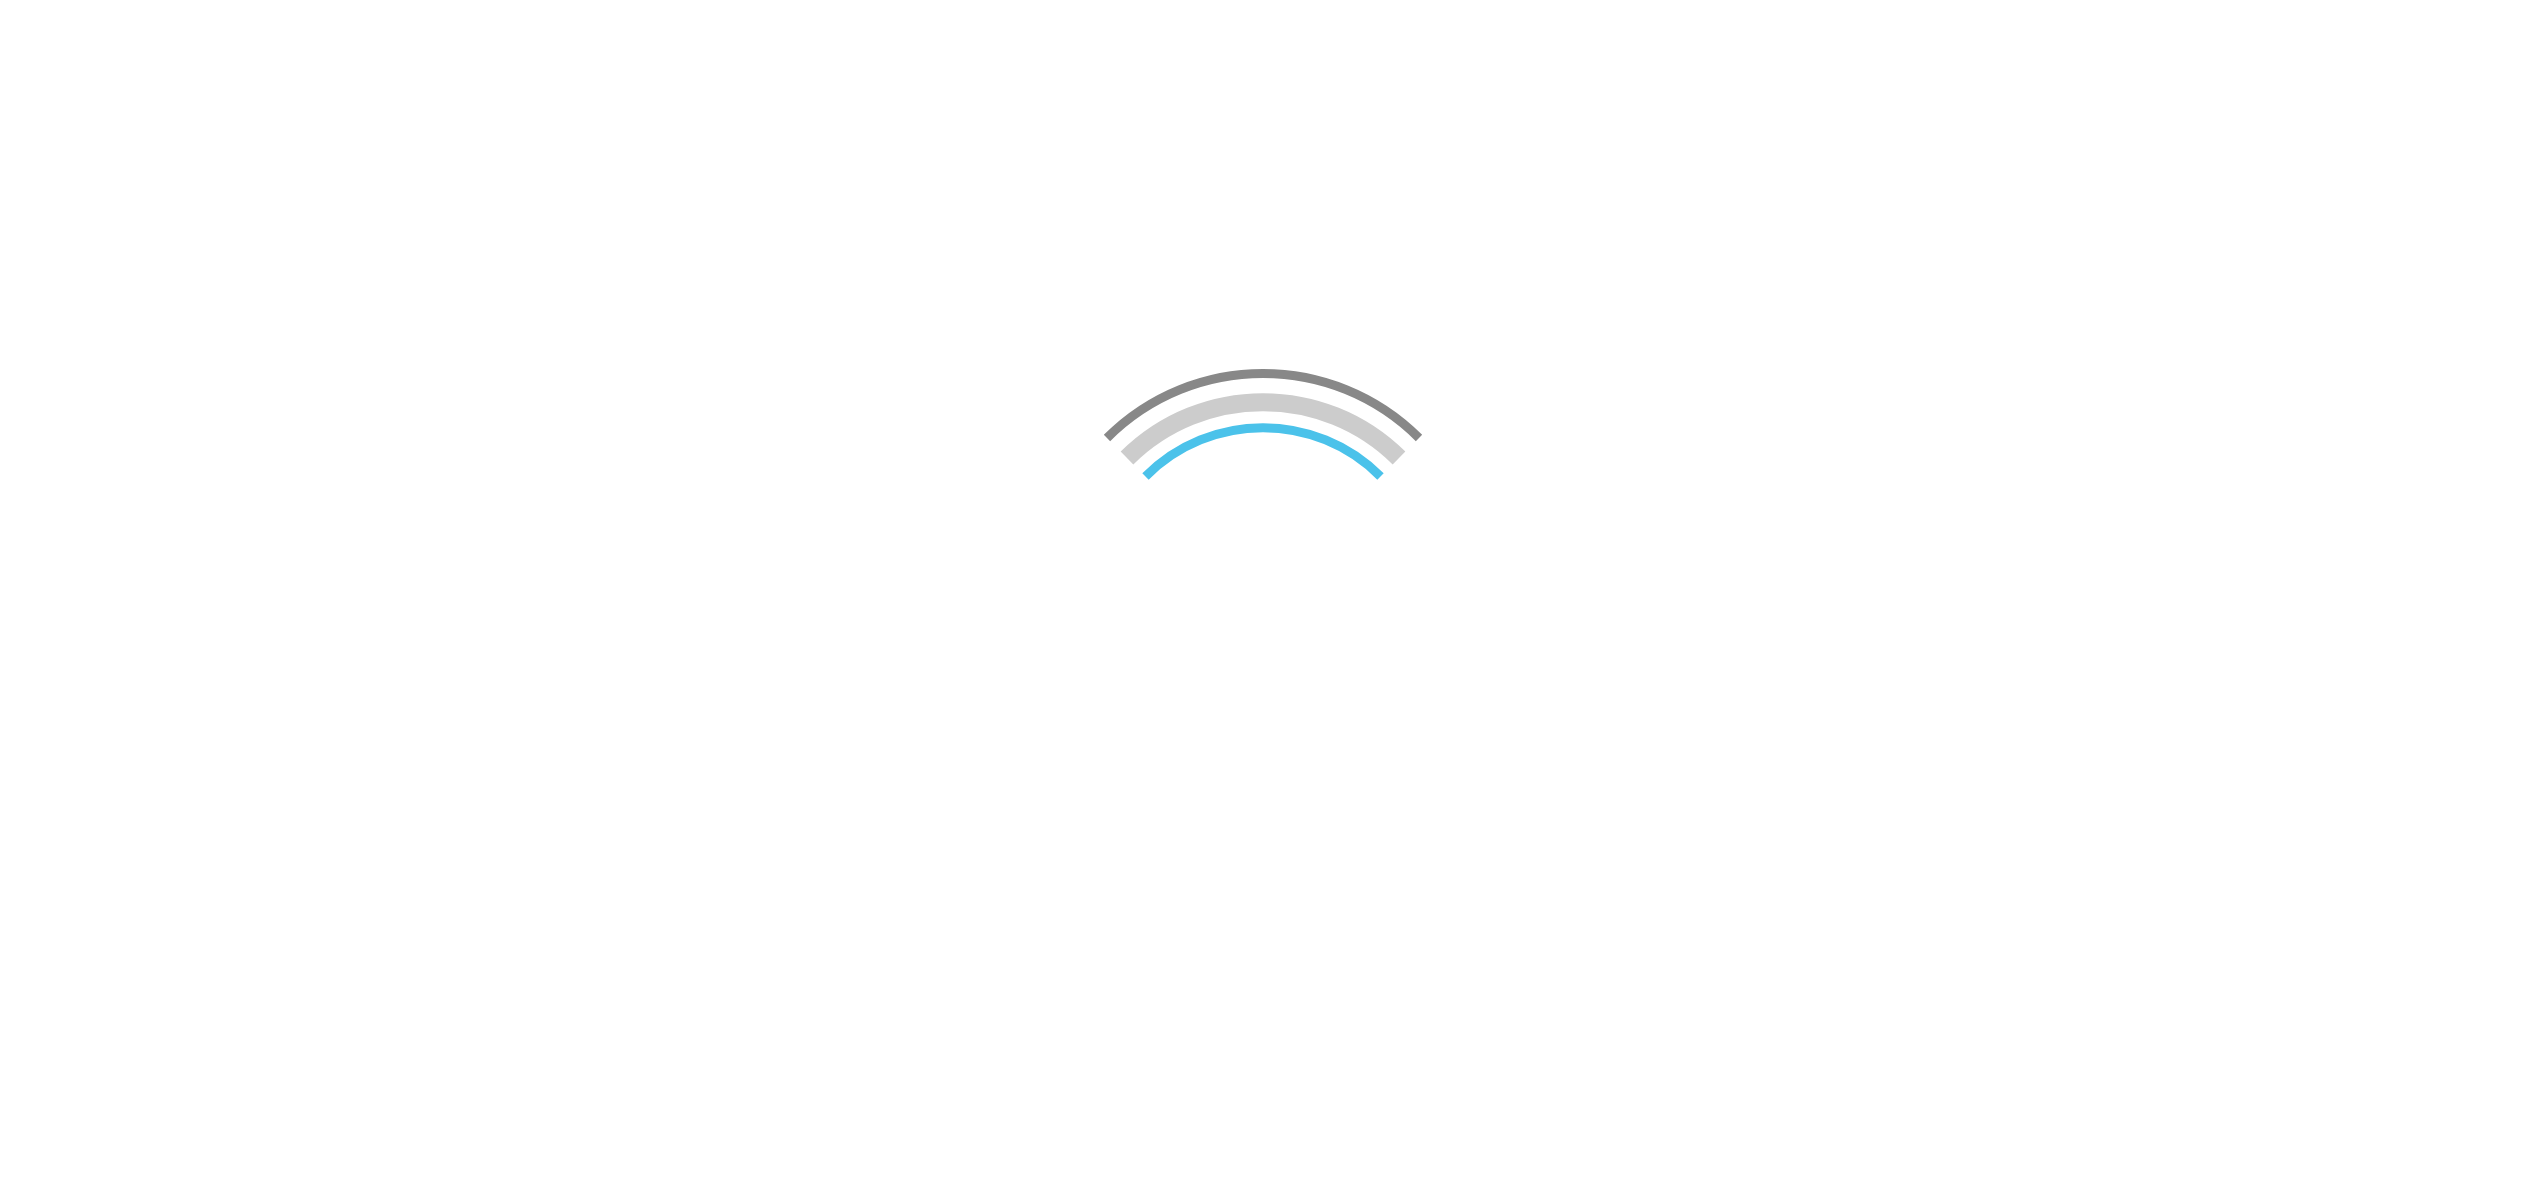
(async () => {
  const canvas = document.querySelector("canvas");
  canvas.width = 2521;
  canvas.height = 1187;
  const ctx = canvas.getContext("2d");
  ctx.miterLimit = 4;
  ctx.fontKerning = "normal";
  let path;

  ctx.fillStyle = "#ffffff";
  ctx.fillRect(0, 0, 2521, 1187);
  path = new Path2D("M1107 438C1193 352 1333 352 1419 438");
  ctx.strokeStyle = "#888888";
  ctx.lineWidth = 9;
  ctx.stroke(path);
  path = new Path2D("M1127 458C1202 383.5 1324 383.5 1399 458");
  ctx.strokeStyle = "#cccccc";
  ctx.lineWidth = 18;
  ctx.stroke(path);
  path = new Path2D("M1145.5 476.5C1210 411.5 1316 411.5 1380.5 476.5");
  ctx.strokeStyle = "#4bc2ea";
  ctx.lineWidth = 9;
  ctx.stroke(path);
})();
